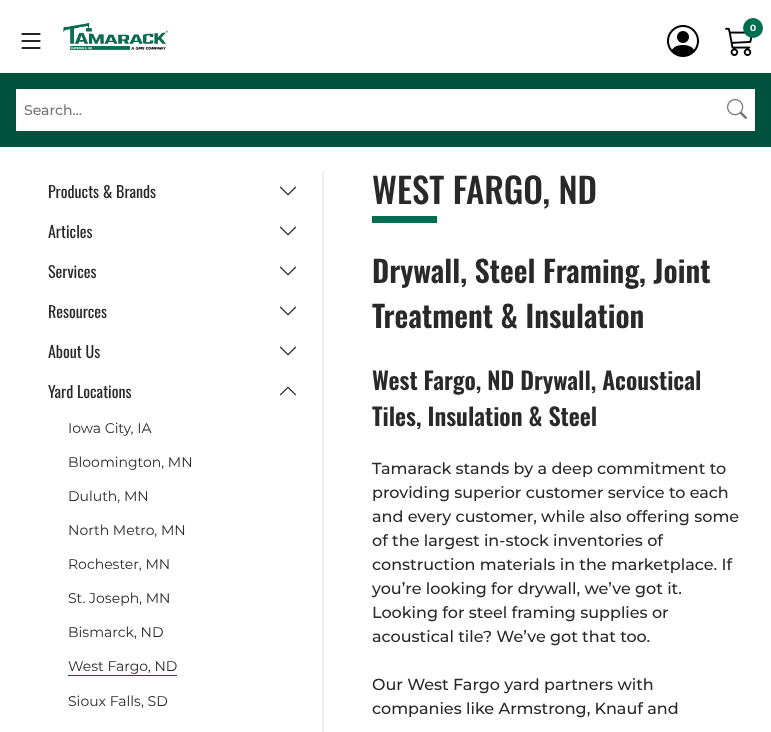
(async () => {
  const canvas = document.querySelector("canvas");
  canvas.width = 771;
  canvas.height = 732;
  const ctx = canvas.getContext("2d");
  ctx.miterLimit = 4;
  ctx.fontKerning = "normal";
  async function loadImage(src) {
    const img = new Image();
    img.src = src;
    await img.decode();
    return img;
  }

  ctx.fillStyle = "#ffffff";
  ctx.fillRect(0, 0, 771, 732);
  ctx.drawImage(await loadImage("img/1.png"), 21, 33, 20, 16);
  ctx.drawImage(await loadImage("img/2.png"), 63, 22, 105, 28);
  ctx.drawImage(await loadImage("img/3.png"), 667, 25, 32, 32);
  ctx.drawImage(await loadImage("img/4.png"), 725, 27, 28, 29);
  ctx.fillStyle = "#006e51";
  ctx.beginPath();
  ctx.arc(753, 28, 10, 0, Math.PI * 2);
  ctx.fill();
  ctx.fillStyle = "#00523d";
  ctx.fillRect(0, 73, 771, 74);
  ctx.fillStyle = "#ffffff";
  ctx.fillRect(16, 89, 739, 42);
  ctx.drawImage(await loadImage("img/5.png"), 727, 99, 20, 20);
  ctx.fillStyle = "#ededed";
  ctx.fillRect(322, 171, 2, 561);
  ctx.drawImage(await loadImage("img/6.png"), 279, 186, 18, 10);
  ctx.drawImage(await loadImage("img/6.png"), 279, 226, 18, 10);
  ctx.drawImage(await loadImage("img/6.png"), 279, 266, 18, 10);
  ctx.drawImage(await loadImage("img/6.png"), 279, 306, 18, 10);
  ctx.drawImage(await loadImage("img/6.png"), 279, 346, 18, 10);
  ctx.drawImage(await loadImage("img/7.png"), 279, 386, 18, 10);
  ctx.fillStyle = "#00523d";
  ctx.fillRect(68, 675, 109, 1);
  ctx.fillStyle = "#006e51";
  ctx.fillRect(372, 216, 65, 7);
  ctx.font = "bold 9px Montserrat";
  ctx.fillStyle = "#ffffff";
  ctx.fillText("0", 750, 31);
  ctx.font = "500 14px Montserrat";
  ctx.fillStyle = "#757575";
  ctx.fillText("Search...", 24, 115);
  ctx.font = "16px Oswald";
  ctx.fillStyle = "#292929";
  for (const [text, x, y] of [
    ["Products & Brands", 48, 198],
    ["Articles", 48, 238],
    ["Services", 48, 278],
    ["Resources", 48, 318],
    ["About Us", 48, 358],
    ["Yard Locations", 48, 398],
  ]) {
    ctx.fillText(text, x, y);
  }
  ctx.font = "14px Montserrat";
  for (const [text, x, y] of [
    ["Iowa City, IA", 68, 433],
    ["Bloomington, MN", 68, 467],
    ["Duluth, MN", 68, 501],
    ["North Metro, MN", 68, 535],
    ["Rochester, MN", 68, 569],
    ["St. Joseph, MN", 68, 603],
    ["Bismarck, ND", 68, 637],
    ["West Fargo, ND", 68, 671],
    ["Sioux Falls, SD", 68, 706],
  ]) {
    ctx.fillText(text, x, y);
  }
  ctx.font = "500 35px Oswald";
  ctx.fillText("WEST FARGO, ND", 372, 204);
  ctx.font = "600 30px Oswald";
  ctx.fillText("Drywall, Steel Framing, Joint", 372, 283);
  ctx.fillText("Treatment & Insulation", 372, 328);
  ctx.font = "600 24px Oswald";
  ctx.fillText("West Fargo, ND Drywall, Acoustical", 372, 390);
  ctx.fillText("Tiles, Insulation & Steel", 372, 426);
  ctx.font = "500 16px Montserrat";
  for (const [text, x, y] of [
    ["Tamarack stands by a deep commitment to", 372, 474],
    ["providing superior customer service to each", 372, 498],
    ["and every customer, while also offering some", 372, 522],
    ["of the largest in-stock inventories of", 372, 546],
    ["construction materials in the marketplace. If", 372, 570],
    ["you’re looking for drywall, we’ve got it.", 372, 594],
    ["Looking for steel framing supplies or", 372, 618],
    ["acoustical tile? We’ve got that too.", 372, 642],
    ["Our West Fargo yard partners with", 372, 690],
    ["companies like Armstrong, Knauf and", 372, 714],
  ]) {
    ctx.fillText(text, x, y);
  }
})();
